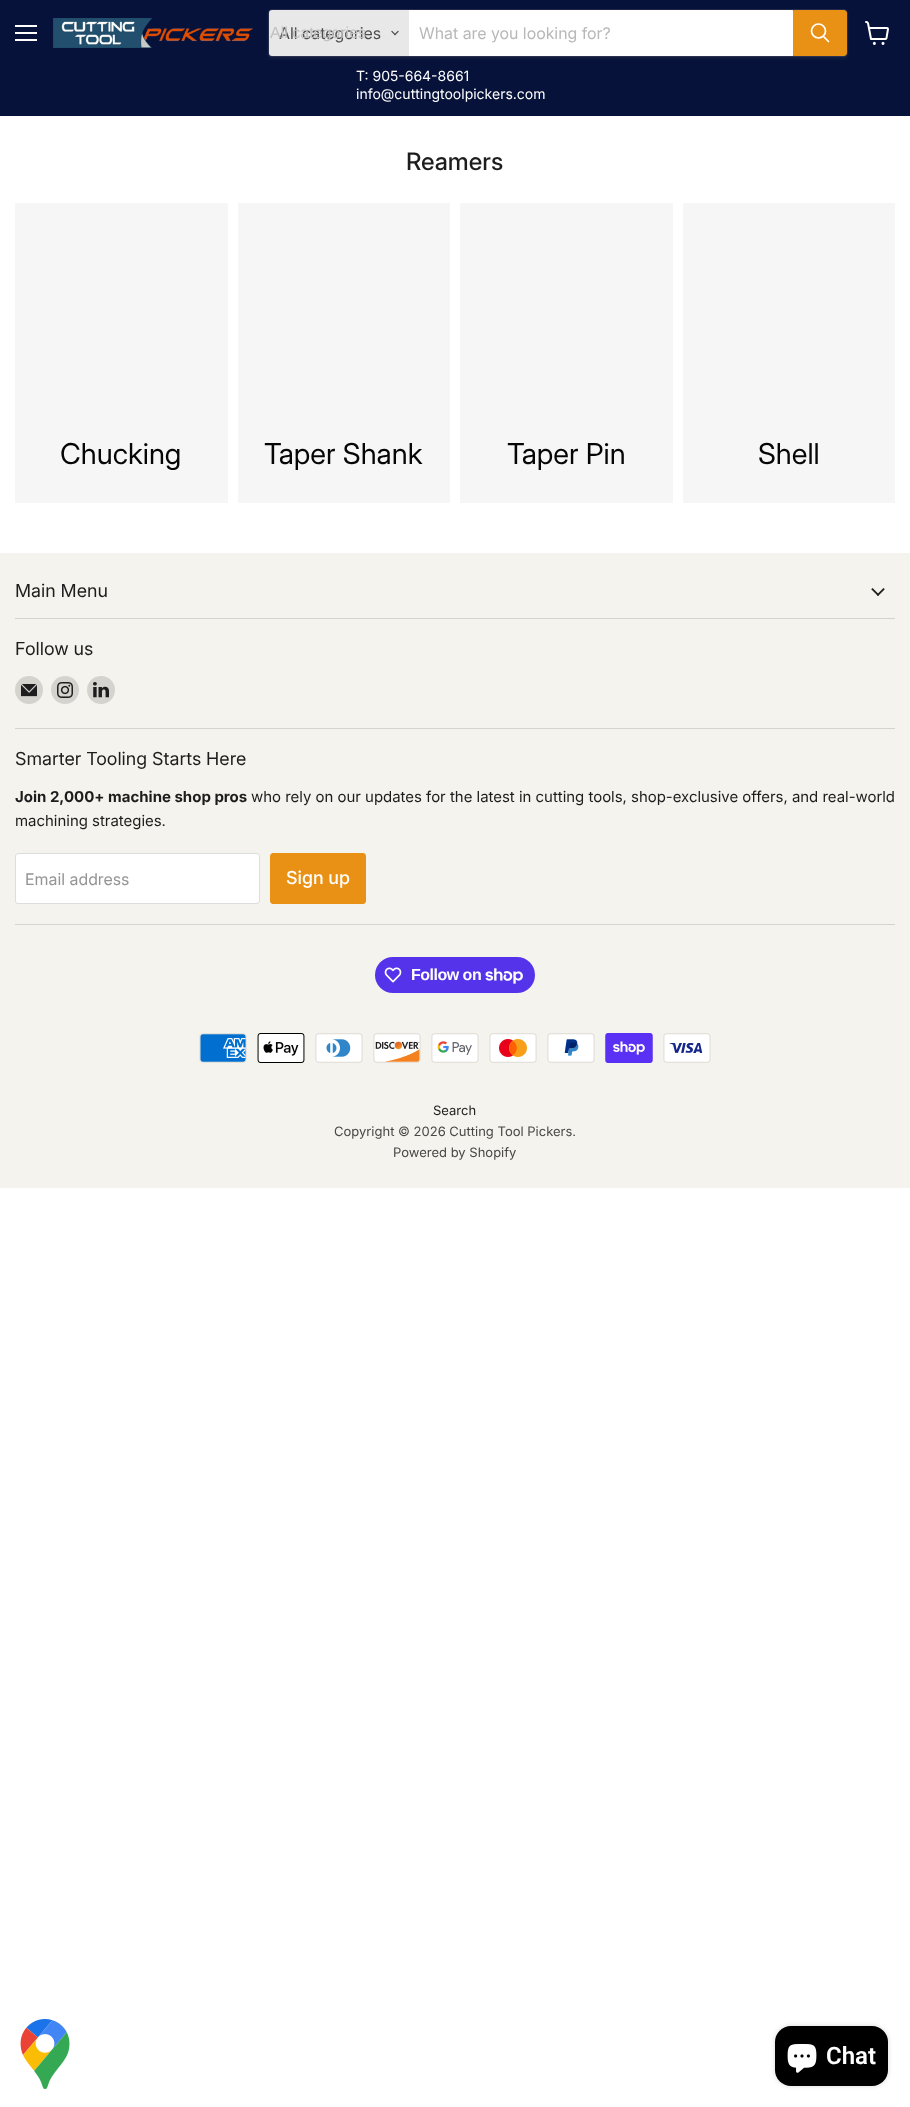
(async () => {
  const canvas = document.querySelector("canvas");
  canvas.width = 910;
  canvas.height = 2107;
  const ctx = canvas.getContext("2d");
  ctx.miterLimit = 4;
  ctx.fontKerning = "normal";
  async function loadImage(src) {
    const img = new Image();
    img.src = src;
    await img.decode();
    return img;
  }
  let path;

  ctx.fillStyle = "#ffffff";
  ctx.fillRect(0, 0, 910, 2107);
  for (const [x, y, w, h, color] of [
    [0, 0, 910, 116, "#07123b"],
    [15, 25, 22, 2, "#ffffff"],
    [15, 32, 22, 2, "#ffffff"],
    [15, 39, 22, 2, "#ffffff"],
  ]) {
    ctx.fillStyle = color;
    ctx.fillRect(x, y, w, h);
  }
  ctx.drawImage(await loadImage("img/1.png"), 53, 18, 200, 30);
  ctx.fillStyle = "rgba(128, 128, 128, 0.11)";
  ctx.filter = "blur(1.5px)";
  ctx.beginPath();
  ctx.roundRect(268, 11, 580, 48, 4);
  ctx.fill();
  ctx.filter = "none";
  ctx.beginPath();
  ctx.roundRect(268.5, 9.5, 579, 47, 3.5);
  ctx.strokeStyle = "rgba(128, 128, 128, 0.2)";
  ctx.stroke();
  ctx.fillStyle = "#e8e8e8";
  ctx.beginPath();
  ctx.roundRect(269, 10, 140, 46, [3, 0, 0, 3]);
  ctx.fill();
  ctx.drawImage(await loadImage("img/2.png"), 391, 30, 8, 6);
  ctx.fillStyle = "#ffffff";
  ctx.fillRect(409, 10, 384, 46);
  ctx.fillStyle = "#e99114";
  ctx.beginPath();
  ctx.roundRect(793.5, 10.5, 53, 45, [0, 2.5, 2.5, 0]);
  ctx.fill();
  ctx.strokeStyle = "#e99114";
  ctx.stroke();
  path = new Path2D("M828.5 41.5L823.5 36.5");
  ctx.strokeStyle = "#ffffff";
  ctx.lineWidth = 1.7;
  ctx.lineCap = "round";
  ctx.stroke(path);
  ctx.beginPath();
  ctx.arc(818.5, 31, 7, 0, Math.PI * 2);
  ctx.stroke();
  ctx.drawImage(await loadImage("img/3.png"), 865, 21, 24, 24);
  for (const [x, y, w, h, color] of [
    [15, 203, 213, 300, "#f6f6f6"],
    [238, 203, 212, 300, "#f6f6f6"],
    [460, 203, 213, 300, "#f6f6f6"],
    [683, 203, 212, 300, "#f6f6f6"],
    [0, 553, 910, 635, "#f5f3ed"],
    [15, 618, 880, 1, "#d5d3ce"],
  ]) {
    ctx.fillStyle = color;
    ctx.fillRect(x, y, w, h);
  }
  ctx.drawImage(await loadImage("img/4.png"), 871, 588, 14, 8);
  ctx.fillRect(15, 728, 880, 1);
  ctx.beginPath();
  ctx.arc(29, 690, 14, 0, Math.PI * 2);
  ctx.fill();
  ctx.drawImage(await loadImage("img/5.png"), 21, 684, 16, 13);
  ctx.beginPath();
  ctx.arc(65, 690, 14, 0, Math.PI * 2);
  ctx.fill();
  ctx.drawImage(await loadImage("img/6.png"), 57, 682, 16, 16);
  ctx.beginPath();
  ctx.arc(101, 690, 14, 0, Math.PI * 2);
  ctx.fill();
  ctx.drawImage(await loadImage("img/7.png"), 93, 682, 16, 16);
  ctx.fillRect(15, 924, 880, 1);
  ctx.fillStyle = "#ffffff";
  ctx.beginPath();
  ctx.roundRect(15.5, 853.5, 244, 50, 2.5);
  ctx.fill();
  ctx.strokeStyle = "#dddddd";
  ctx.lineWidth = 1;
  ctx.stroke();
  ctx.fillStyle = "#e99114";
  ctx.beginPath();
  ctx.roundRect(270.5, 853.5, 95, 50, 2.5);
  ctx.fill();
  ctx.strokeStyle = "#e99114";
  ctx.stroke();
  ctx.fillStyle = "#5433eb";
  ctx.beginPath();
  ctx.roundRect(375, 957, 160, 36, 18);
  ctx.fill();
  ctx.drawImage(await loadImage("img/8.png"), 384, 967, 18, 16);
  ctx.drawImage(await loadImage("img/9.png"), 485, 968, 38, 16);
  ctx.drawImage(await loadImage("img/10.png"), 199, 1033, 48, 30);
  ctx.drawImage(await loadImage("img/11.png"), 257, 1033, 48, 30);
  ctx.drawImage(await loadImage("img/12.png"), 315, 1033, 48, 30);
  ctx.drawImage(await loadImage("img/13.png"), 373, 1033, 48, 30);
  ctx.drawImage(await loadImage("img/14.png"), 431, 1033, 48, 30);
  ctx.drawImage(await loadImage("img/15.png"), 489, 1033, 48, 30);
  ctx.drawImage(await loadImage("img/16.png"), 547, 1033, 48, 30);
  ctx.drawImage(await loadImage("img/17.png"), 605, 1033, 48, 30);
  ctx.drawImage(await loadImage("img/18.png"), 663, 1033, 48, 30);
  ctx.drawImage(await loadImage("img/19.png"), 20, 2019, 50, 70);
  ctx.fillStyle = "rgba(0, 0, 0, 0.15)";
  ctx.filter = "blur(2.5px)";
  ctx.beginPath();
  ctx.roundRect(775, 2026, 113, 60, 16);
  ctx.fill();
  ctx.filter = "none";
  ctx.fillStyle = "#000000";
  ctx.beginPath();
  ctx.roundRect(775, 2026, 113, 60, 16);
  ctx.fill();
  ctx.drawImage(await loadImage("img/20.png"), 787, 2044, 30, 29);
  ctx.font = "16px 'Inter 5'";
  ctx.fillStyle = "#4d4d4d";
  ctx.fillText("All categories", 279, 39);
  ctx.font = "16px Liberation Sans";
  ctx.fillStyle = "#c0c0c0";
  ctx.fillText("All categories", 270, 38);
  ctx.font = "16px 'Inter 5'";
  ctx.fillStyle = "#b8b8b8";
  ctx.fillText("What are you looking for?", 419, 39);
  ctx.font = "14px 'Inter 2'";
  ctx.fillStyle = "#ffffff";
  ctx.fillText("T: 905-664-8661", 356, 81);
  ctx.fillText("info@cuttingtoolpickers.com", 356, 99);
  ctx.font = "500 24px Inter";
  ctx.fillStyle = "#1d1d1d";
  ctx.fillText("Reamers", 406, 170);
  ctx.font = "28.75px 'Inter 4'";
  ctx.fillStyle = "#060606";
  for (const [text, x, y] of [
    ["Chucking", 60, 464],
    ["Taper Shank", 264, 464],
    ["Taper Pin", 507, 464],
    ["Shell", 758, 464],
  ]) {
    ctx.fillText(text, x, y);
  }
  ctx.font = "18px 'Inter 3'";
  ctx.fillStyle = "#1d1d1d";
  for (const [text, x, y] of [
    ["Main Menu", 15, 597],
    ["Follow us", 15, 655],
    ["Smarter Tooling Starts Here", 15, 765],
  ]) {
    ctx.fillText(text, x, y);
  }
  ctx.font = "bold 15px Inter";
  ctx.fillText("Join 2,000+ machine shop pros", 15, 802);
  ctx.font = "15px Inter";
  ctx.fillText("who rely on our updates for the latest in cutting tools, shop-exclusive offers, and real-world", 251, 802);
  ctx.fillText("machining strategies.", 15, 826);
  ctx.font = "16px 'Inter 5'";
  ctx.fillStyle = "#949494";
  ctx.fillText("Email address", 25, 885);
  ctx.font = "500 18px 'Inter 2'";
  ctx.fillStyle = "#ffffff";
  ctx.fillText("Sign up", 286, 884);
  ctx.letterSpacing = "-0.5px";
  ctx.font = "bold 16px Liberation Sans";
  ctx.fillText("Follow on", 411, 980);
  ctx.letterSpacing = "0px";
  ctx.font = "13px 'Inter 2'";
  ctx.fillStyle = "#1d1d1d";
  ctx.fillText("Search", 433, 1115);
  ctx.fillStyle = "#484847";
  ctx.fillText("Copyright © 2026 Cutting Tool Pickers.", 334, 1136);
  ctx.fillText("Powered by Shopify", 393, 1157);
  ctx.font = "600 24px Roboto";
  ctx.fillStyle = "#ffffff";
  ctx.fillText("Chat", 826, 2064);
})();
